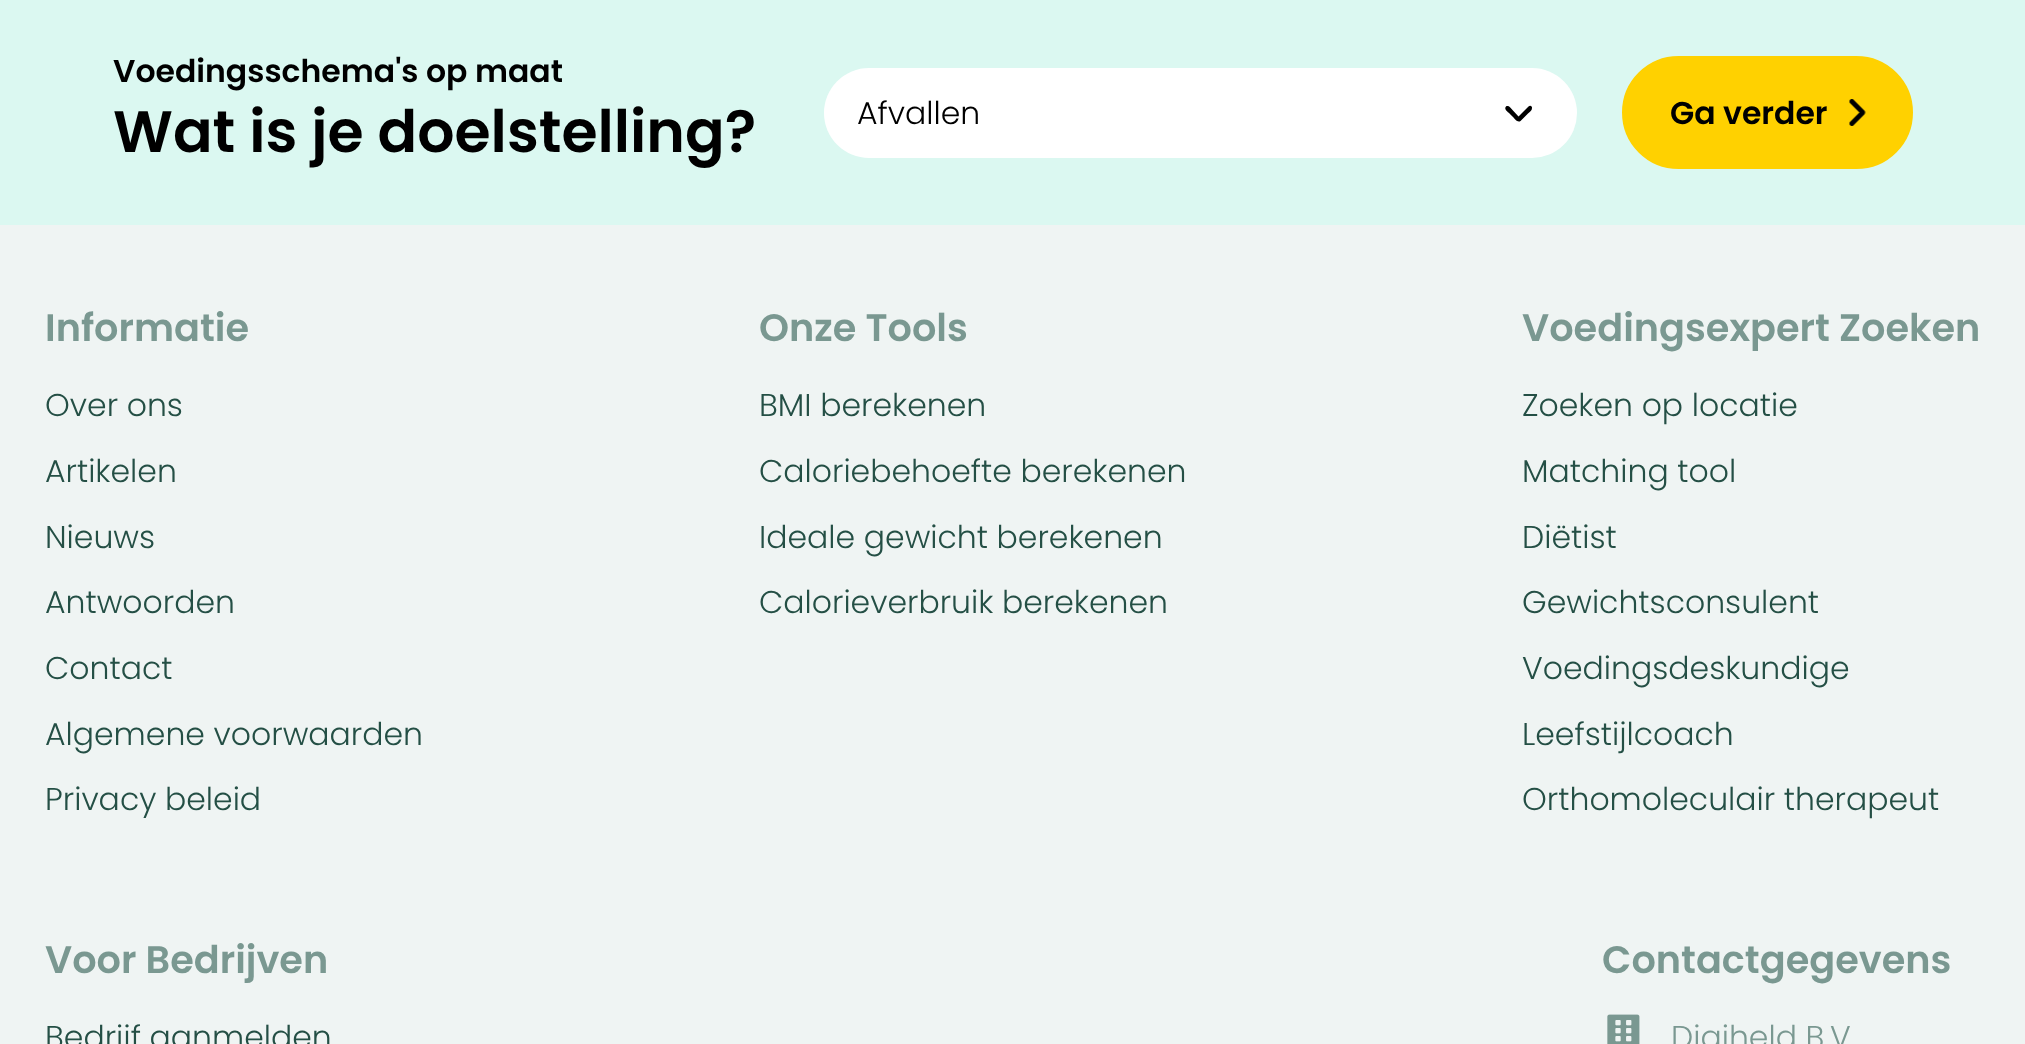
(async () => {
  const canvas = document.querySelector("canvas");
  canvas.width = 2025;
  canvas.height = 1044;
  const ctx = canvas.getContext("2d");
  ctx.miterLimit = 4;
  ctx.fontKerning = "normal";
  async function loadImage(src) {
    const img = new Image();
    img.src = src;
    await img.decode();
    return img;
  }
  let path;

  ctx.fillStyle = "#eff4f3";
  ctx.fillRect(0, 0, 2025, 1044);
  ctx.fillStyle = "#dbf8f1";
  ctx.fillRect(0, 0, 2025, 225);
  ctx.fillStyle = "#ffffff";
  ctx.beginPath();
  ctx.roundRect(824, 68, 753, 90, 45);
  ctx.fill();
  ctx.fillStyle = "#000000";
  path = new Path2D("M1506 106.5C1503.5 109 1508 112 1509.5 113.5L1513 117C1514.5 118.5 1517.5 123 1520.5 121L1528 113.5C1530 111.5 1532 110.5 1532 108C1532 107 1532 107 1531.5 106.5C1531 105.5 1529.5 105.5 1528.5 106.5L1518.5 116.5L1512.5 110C1510.5 108 1509.5 106 1507.5 106C1506.5 106 1506.5 106 1506 106.5Z");
  ctx.fill(path);
  ctx.fillStyle = "#ffd100";
  ctx.beginPath();
  ctx.roundRect(1623, 57, 289, 111, 55.5);
  ctx.fill();
  ctx.strokeStyle = "#ffd100";
  ctx.lineWidth = 2;
  ctx.stroke();
  ctx.drawImage(await loadImage("img/1.png"), 1849, 99, 17, 27);
  ctx.drawImage(await loadImage("img/2.png"), 1607, 1014, 33, 30);
  ctx.font = "600 31.5px Poppins";
  ctx.fillStyle = "#000000";
  ctx.fillText("Voedingsschema's op maat", 113, 82);
  ctx.font = "600 58.5px Poppins";
  ctx.fillText("Wat is je doelstelling?", 113, 152);
  ctx.font = "300 31.5px Poppins";
  ctx.fillText("Afvallen", 857, 124);
  ctx.font = "600 31.5px Poppins";
  ctx.fillText("Ga verder", 1670, 124);
  ctx.font = "600 38.25px Poppins";
  ctx.fillStyle = "#7a9891";
  ctx.fillText("Informatie", 45, 341);
  ctx.font = "300 31.5px Poppins";
  ctx.fillStyle = "#244f45";
  for (const [text, x, y] of [
    ["Over ons", 45, 416],
    ["Artikelen", 45, 482],
    ["Nieuws", 45, 548],
    ["Antwoorden", 45, 613],
    ["Contact", 45, 679],
    ["Algemene voorwaarden", 45, 745],
    ["Privacy beleid", 45, 810],
  ]) {
    ctx.fillText(text, x, y);
  }
  ctx.font = "600 38.25px Poppins";
  ctx.fillStyle = "#7a9891";
  ctx.fillText("Onze Tools", 759, 341);
  ctx.font = "300 31.5px Poppins";
  ctx.fillStyle = "#244f45";
  for (const [text, x, y] of [
    ["BMI berekenen", 759, 416],
    ["Caloriebehoefte berekenen", 759, 482],
    ["Ideale gewicht berekenen", 759, 548],
    ["Calorieverbruik berekenen", 759, 613],
  ]) {
    ctx.fillText(text, x, y);
  }
  ctx.font = "600 38.25px Poppins";
  ctx.fillStyle = "#7a9891";
  ctx.fillText("Voedingsexpert Zoeken", 1522, 341);
  ctx.font = "300 31.5px Poppins";
  ctx.fillStyle = "#244f45";
  for (const [text, x, y] of [
    ["Zoeken op locatie", 1522, 416],
    ["Matching tool", 1522, 482],
    ["Diëtist", 1522, 548],
    ["Gewichtsconsulent", 1522, 613],
    ["Voedingsdeskundige", 1522, 679],
    ["Leefstijlcoach", 1522, 745],
    ["Orthomoleculair therapeut", 1522, 810],
  ]) {
    ctx.fillText(text, x, y);
  }
  ctx.font = "600 38.25px Poppins";
  ctx.fillStyle = "#7a9891";
  ctx.fillText("Voor Bedrijven", 45, 973);
  ctx.font = "300 31.5px Poppins";
  ctx.fillStyle = "#244f45";
  ctx.fillText("Bedrijf aanmelden", 45, 1048);
  ctx.font = "600 38.25px Poppins";
  ctx.fillStyle = "#7a9891";
  ctx.fillText("Contactgegevens", 1602, 973);
  ctx.font = "300 31.5px Poppins";
  ctx.fillText("Digiheld B.V", 1671, 1048);
})();
